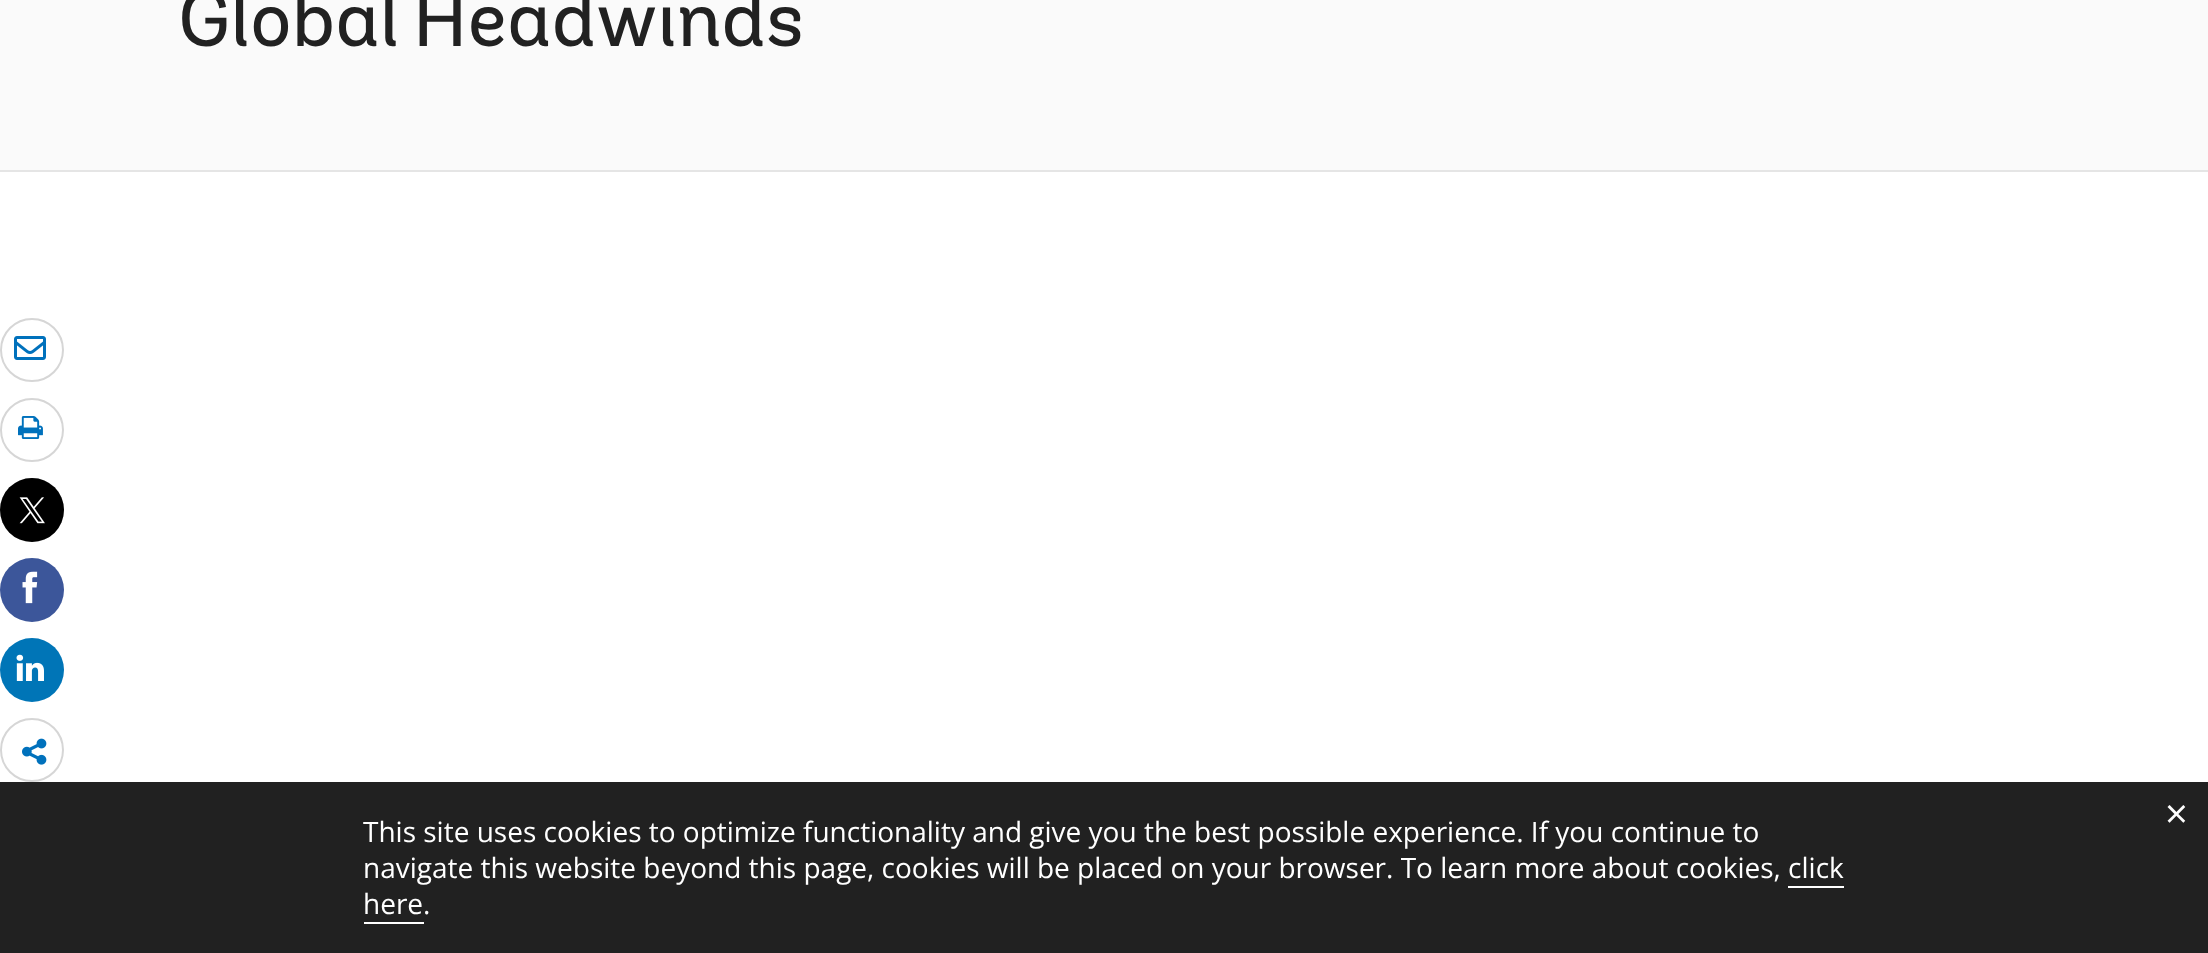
(async () => {
  const canvas = document.querySelector("canvas");
  canvas.width = 2208;
  canvas.height = 953;
  const ctx = canvas.getContext("2d");
  ctx.miterLimit = 4;
  ctx.fontKerning = "none";
  async function loadImage(src) {
    const img = new Image();
    img.src = src;
    await img.decode();
    return img;
  }

  ctx.fillStyle = "#ffffff";
  ctx.fillRect(0, 0, 2208, 953);
  ctx.fillStyle = "#fafafa";
  ctx.fillRect(0, 0, 2208, 170);
  ctx.fillStyle = "#e5e5e5";
  ctx.fillRect(0, 170, 2208, 2);
  ctx.beginPath();
  ctx.arc(32, 350, 31, 0, Math.PI * 2);
  ctx.strokeStyle = "#d6d6d6";
  ctx.lineWidth = 2;
  ctx.stroke();
  ctx.drawImage(await loadImage("img/1.png"), 14, 336, 32, 24);
  ctx.beginPath();
  ctx.arc(32, 430, 31, 0, Math.PI * 2);
  ctx.stroke();
  ctx.drawImage(await loadImage("img/2.png"), 18, 416, 25, 23);
  ctx.fillStyle = "#000000";
  ctx.beginPath();
  ctx.arc(32, 510, 32, 0, Math.PI * 2);
  ctx.fill();
  ctx.beginPath();
  ctx.arc(32, 510, 31, 0, Math.PI * 2);
  ctx.strokeStyle = "rgba(0, 0, 0, 0.16)";
  ctx.stroke();
  ctx.drawImage(await loadImage("img/3.png"), 19, 497, 26, 27);
  ctx.fillStyle = "#3c569a";
  ctx.beginPath();
  ctx.arc(32, 590, 32, 0, Math.PI * 2);
  ctx.fill();
  ctx.drawImage(await loadImage("img/4.png"), 22, 571, 16, 33);
  ctx.fillStyle = "#0075b7";
  ctx.beginPath();
  ctx.arc(32, 670, 32, 0, Math.PI * 2);
  ctx.fill();
  ctx.drawImage(await loadImage("img/5.png"), 16, 654, 28, 27);
  ctx.beginPath();
  ctx.arc(32, 750, 31, 0, Math.PI * 2);
  ctx.strokeStyle = "#d6d6d6";
  ctx.stroke();
  ctx.drawImage(await loadImage("img/6.png"), 22, 738, 25, 27);
  for (const [x, y, w, h, color] of [
    [0, 782, 2208, 171, "#212121"],
    [1788, 886, 56, 2, "#ffffff"],
    [364, 922, 60, 2, "#ffffff"],
  ]) {
    ctx.fillStyle = color;
    ctx.fillRect(x, y, w, h);
  }
  ctx.wordSpacing = "-5px";
  ctx.font = "80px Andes";
  ctx.fillStyle = "#212121";
  ctx.fillText("Global Headwinds", 178, 46);
  ctx.wordSpacing = "0px";
  ctx.font = "40px Open Sans";
  ctx.fillStyle = "#ffffff";
  ctx.fillText("×", 2165, 828);
  ctx.font = "28px Open Sans";
  for (const [text, x, y] of [
    ["This site uses cookies to optimize functionality and give you the best possible experience. If you continue to", 363, 842],
    ["navigate this website beyond this page, cookies will be placed on your browser. To learn more about cookies, click", 363, 878],
    ["here.", 363, 914],
  ]) {
    ctx.fillText(text, x, y);
  }
})();
